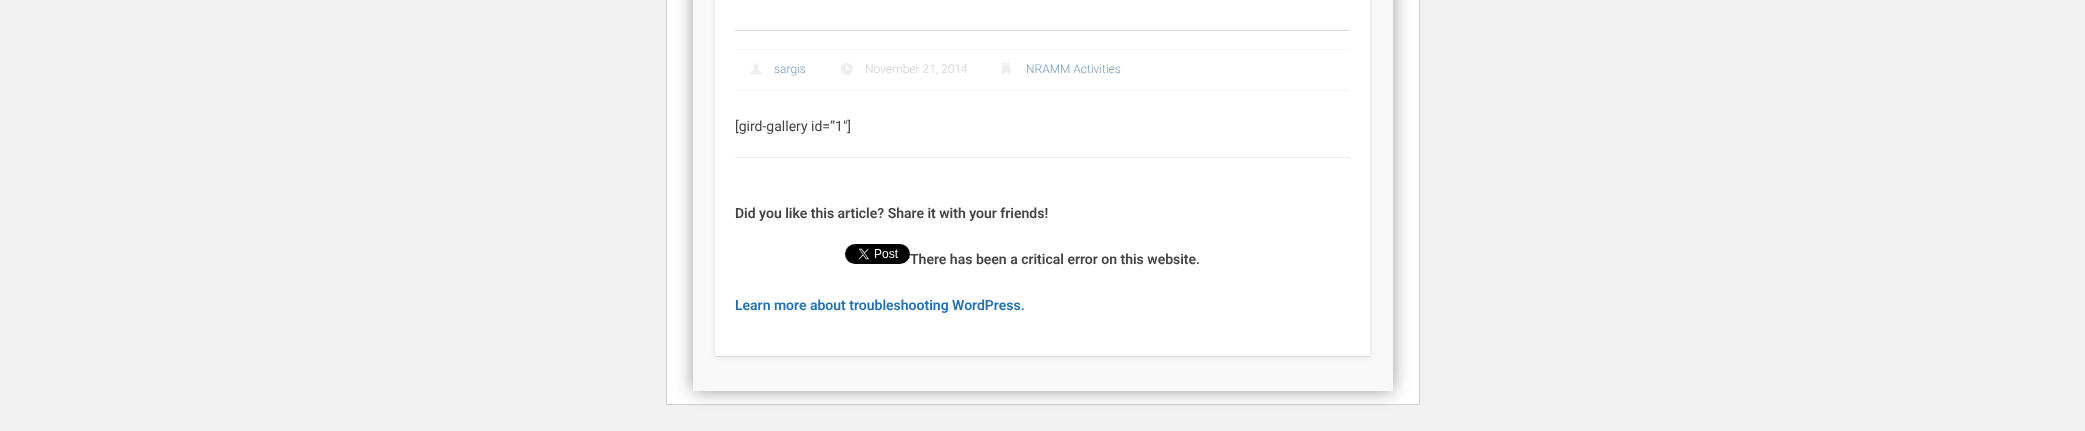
(async () => {
  const canvas = document.querySelector("canvas");
  canvas.width = 2085;
  canvas.height = 431;
  const ctx = canvas.getContext("2d");
  ctx.miterLimit = 4;
  ctx.fontKerning = "normal";
  async function loadImage(src) {
    const img = new Image();
    img.src = src;
    await img.decode();
    return img;
  }

  ctx.fillStyle = "#f1f1f1";
  ctx.fillRect(0, 0, 2085, 431);
  ctx.fillStyle = "#ffffff";
  ctx.beginPath();
  ctx.rect(666.5, -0.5, 753, 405);
  ctx.fill();
  ctx.strokeStyle = "#ccd0d4";
  ctx.stroke();
  ctx.fillStyle = "rgba(0, 0, 0, 0.4)";
  ctx.filter = "blur(9px)";
  ctx.beginPath();
  ctx.rect(693, -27, 700, 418);
  ctx.fill();
  ctx.filter = "none";
  ctx.fillStyle = "#f8f8f8";
  ctx.fillRect(693, 0, 700, 391);
  ctx.fillStyle = "rgba(0, 0, 0, 0.1)";
  ctx.filter = "blur(2.5px)";
  ctx.beginPath();
  ctx.rect(715, -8, 655, 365);
  ctx.fill();
  ctx.filter = "none";
  for (const [x, y, w, h, color] of [
    [715, 0, 655, 356, "#ffffff"],
    [715, 356, 655, 1, "#dedede"],
    [735, 30, 615, 1, "#dadada"],
    [735, 49, 615, 1, "#f4f4f4"],
    [735, 90, 615, 1, "#f4f4f4"],
  ]) {
    ctx.fillStyle = color;
    ctx.fillRect(x, y, w, h);
  }
  ctx.drawImage(await loadImage("img/1.png"), 750, 63, 12, 12);
  ctx.drawImage(await loadImage("img/2.png"), 841, 63, 12, 12);
  ctx.drawImage(await loadImage("img/3.png"), 1002, 63, 8, 12);
  ctx.fillStyle = "#eeeeee";
  ctx.fillRect(735, 157, 615, 1);
  ctx.drawImage(await loadImage("img/4.png"), 845, 244, 65, 20);
  ctx.font = "300 12px Roboto";
  ctx.fillStyle = "#7597b9";
  ctx.fillText("sargis", 774, 73);
  ctx.fillStyle = "#cccccc";
  ctx.fillText("November 21, 2014", 865, 73);
  ctx.fillStyle = "#7597b9";
  ctx.fillText("NRAMM Activities", 1026, 73);
  ctx.font = "14px Roboto";
  ctx.fillStyle = "#444444";
  ctx.fillText("[gird-gallery id=”1″]", 735, 131);
  ctx.font = "600 14px Roboto";
  ctx.fillText("Did you like this article? Share it with your friends!", 735, 218);
  ctx.fillText("There has been a critical error on this website.", 910, 264);
  ctx.fillStyle = "#2271b1";
  ctx.fillText("Learn more about troubleshooting WordPress.", 735, 310);
})();
